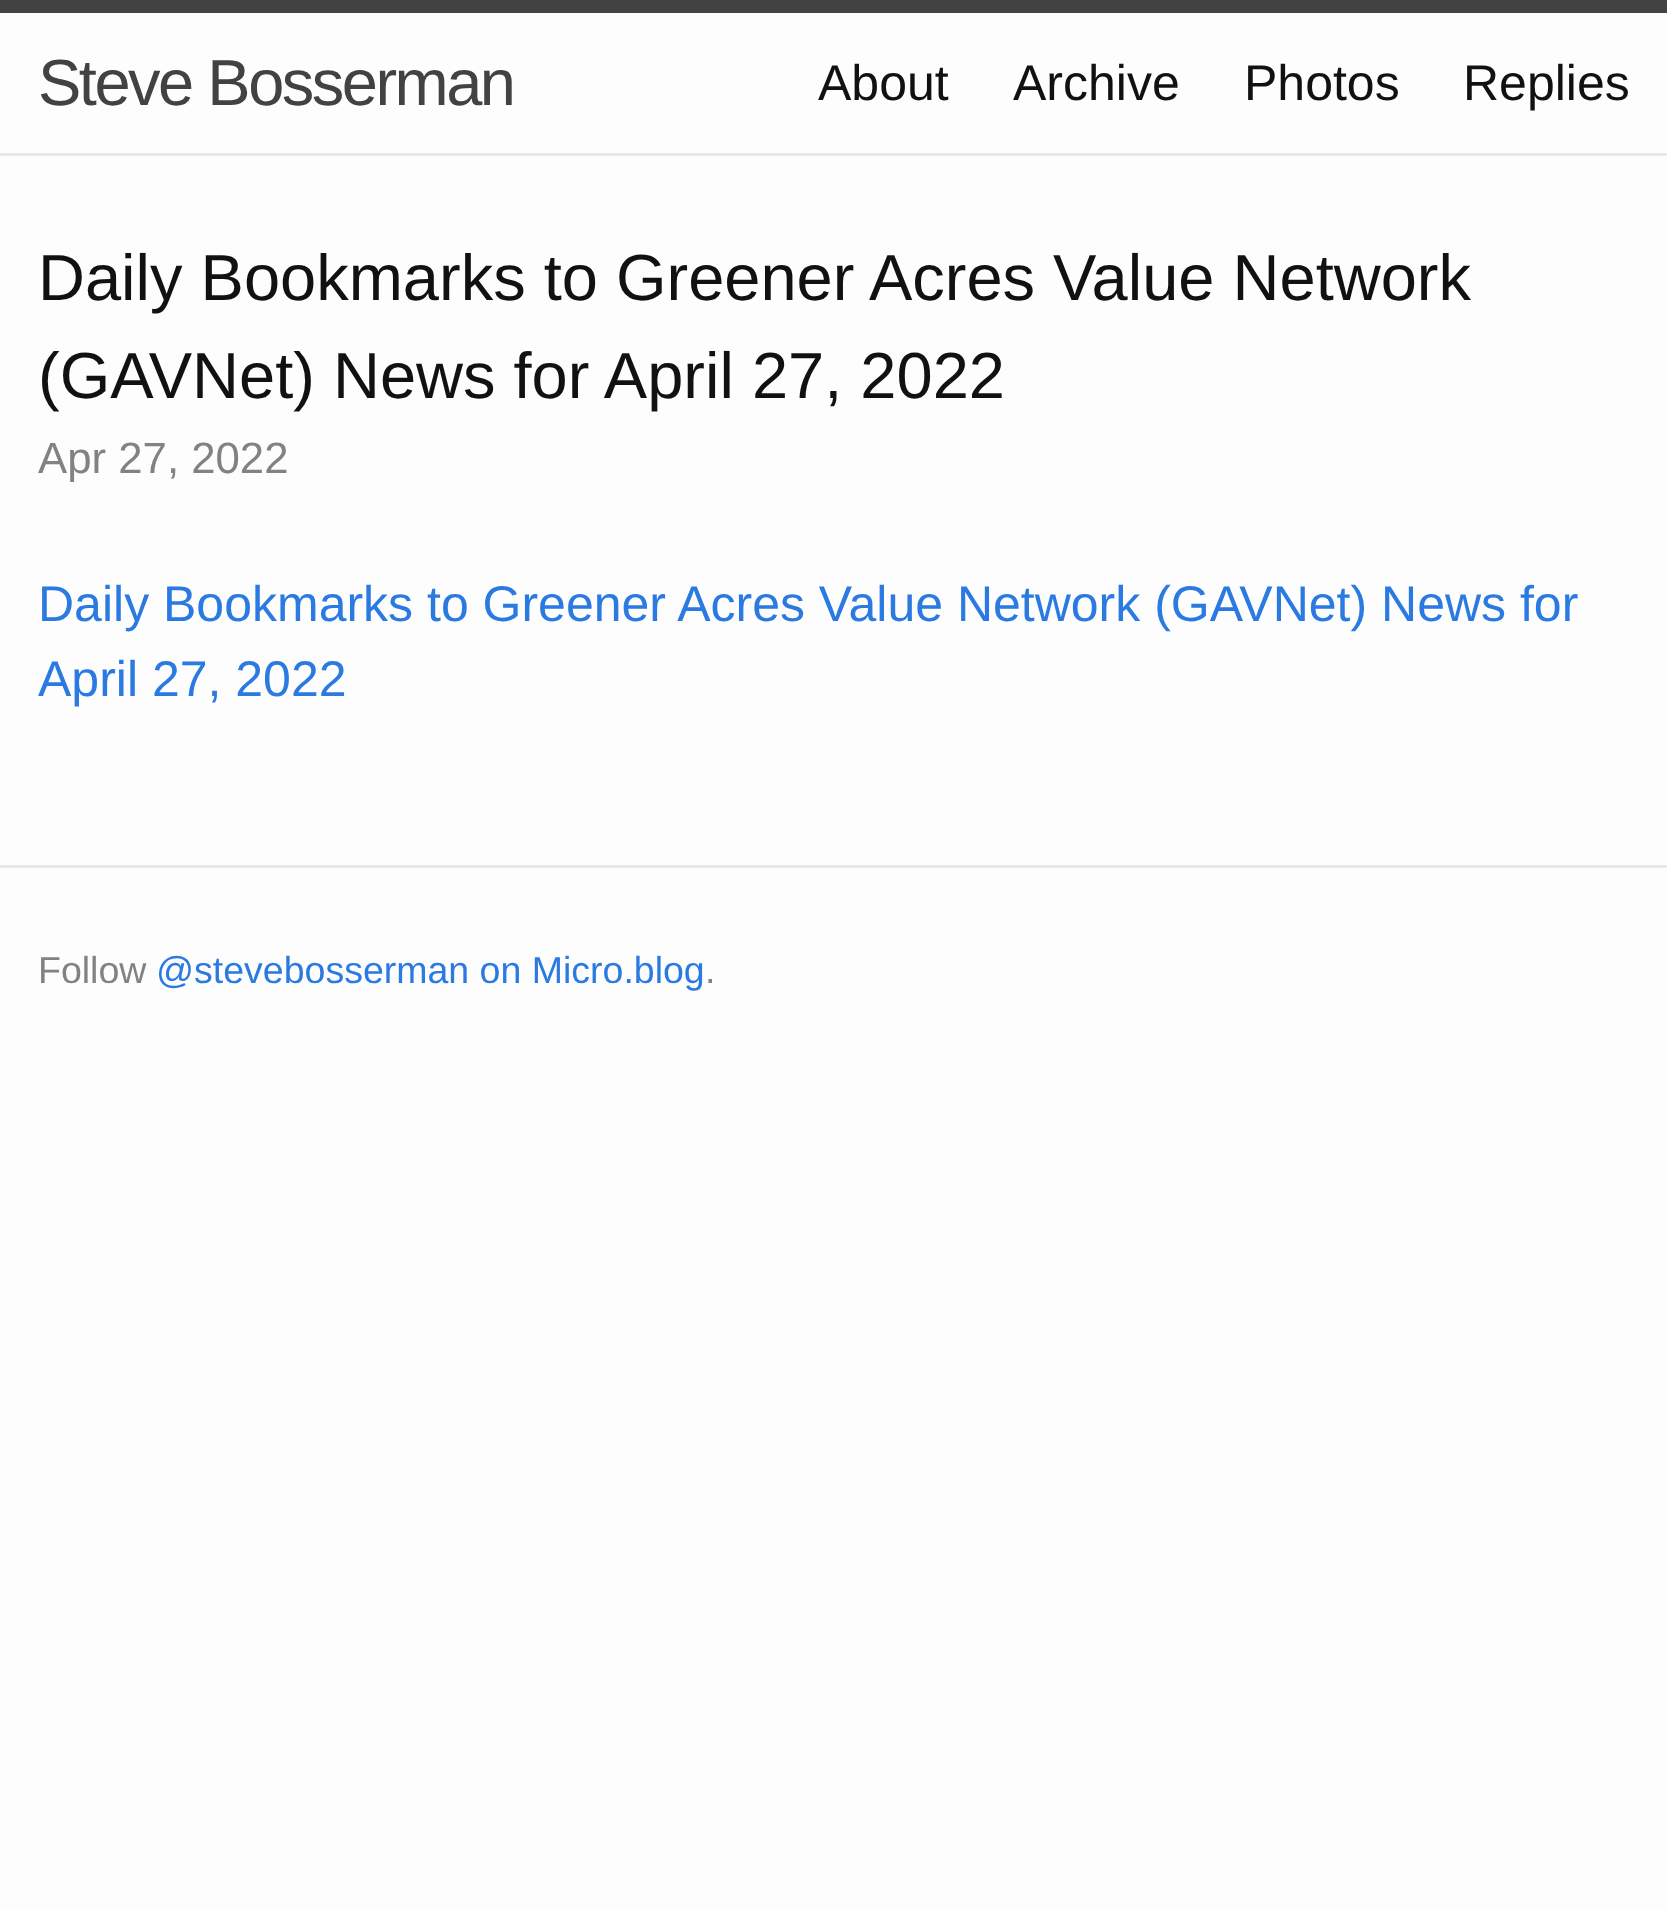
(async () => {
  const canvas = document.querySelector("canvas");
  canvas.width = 1667;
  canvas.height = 1910;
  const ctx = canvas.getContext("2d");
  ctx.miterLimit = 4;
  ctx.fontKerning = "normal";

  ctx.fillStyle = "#fdfdfd";
  ctx.fillRect(0, 0, 1667, 1910);
  for (const [x, y, w, h, color] of [
    [0, 0, 1667, 13, "#424242"],
    [0, 153, 1667, 3, "#e8e8e8"],
    [0, 865, 1667, 3, "#e8e8e8"],
  ]) {
    ctx.fillStyle = color;
    ctx.fillRect(x, y, w, h);
  }
  ctx.letterSpacing = "-2.5px";
  ctx.font = "65px Liberation Sans";
  ctx.fillStyle = "#424242";
  ctx.fillText("Steve Bosserman", 38, 105);
  ctx.letterSpacing = "0px";
  ctx.font = "50px Liberation Sans";
  ctx.fillStyle = "#111111";
  for (const [text, x, y] of [
    ["About", 818, 100],
    ["Archive", 1013, 100],
    ["Photos", 1244, 100],
    ["Replies", 1463, 100],
  ]) {
    ctx.fillText(text, x, y);
  }
  ctx.font = "65px Liberation Sans";
  ctx.fillText("Daily Bookmarks to Greener Acres Value Network", 38, 300);
  ctx.fillText("(GAVNet) News for April 27, 2022", 38, 398);
  ctx.font = "43.75px Liberation Sans";
  ctx.fillStyle = "#828282";
  ctx.fillText("Apr 27, 2022", 38, 473);
  ctx.font = "50px Liberation Sans";
  ctx.fillStyle = "#2a7ae2";
  ctx.fillText("Daily Bookmarks to Greener Acres Value Network (GAVNet) News for", 38, 621);
  ctx.fillText("April 27, 2022", 38, 696);
  ctx.font = "37.5px Liberation Sans";
  ctx.fillStyle = "#828282";
  ctx.fillText("Follow", 38, 983);
  ctx.fillStyle = "#2a7ae2";
  ctx.fillText("@stevebosserman on Micro.blog", 156, 983);
  ctx.fillStyle = "#828282";
  ctx.fillText(".", 705, 983);
})();
